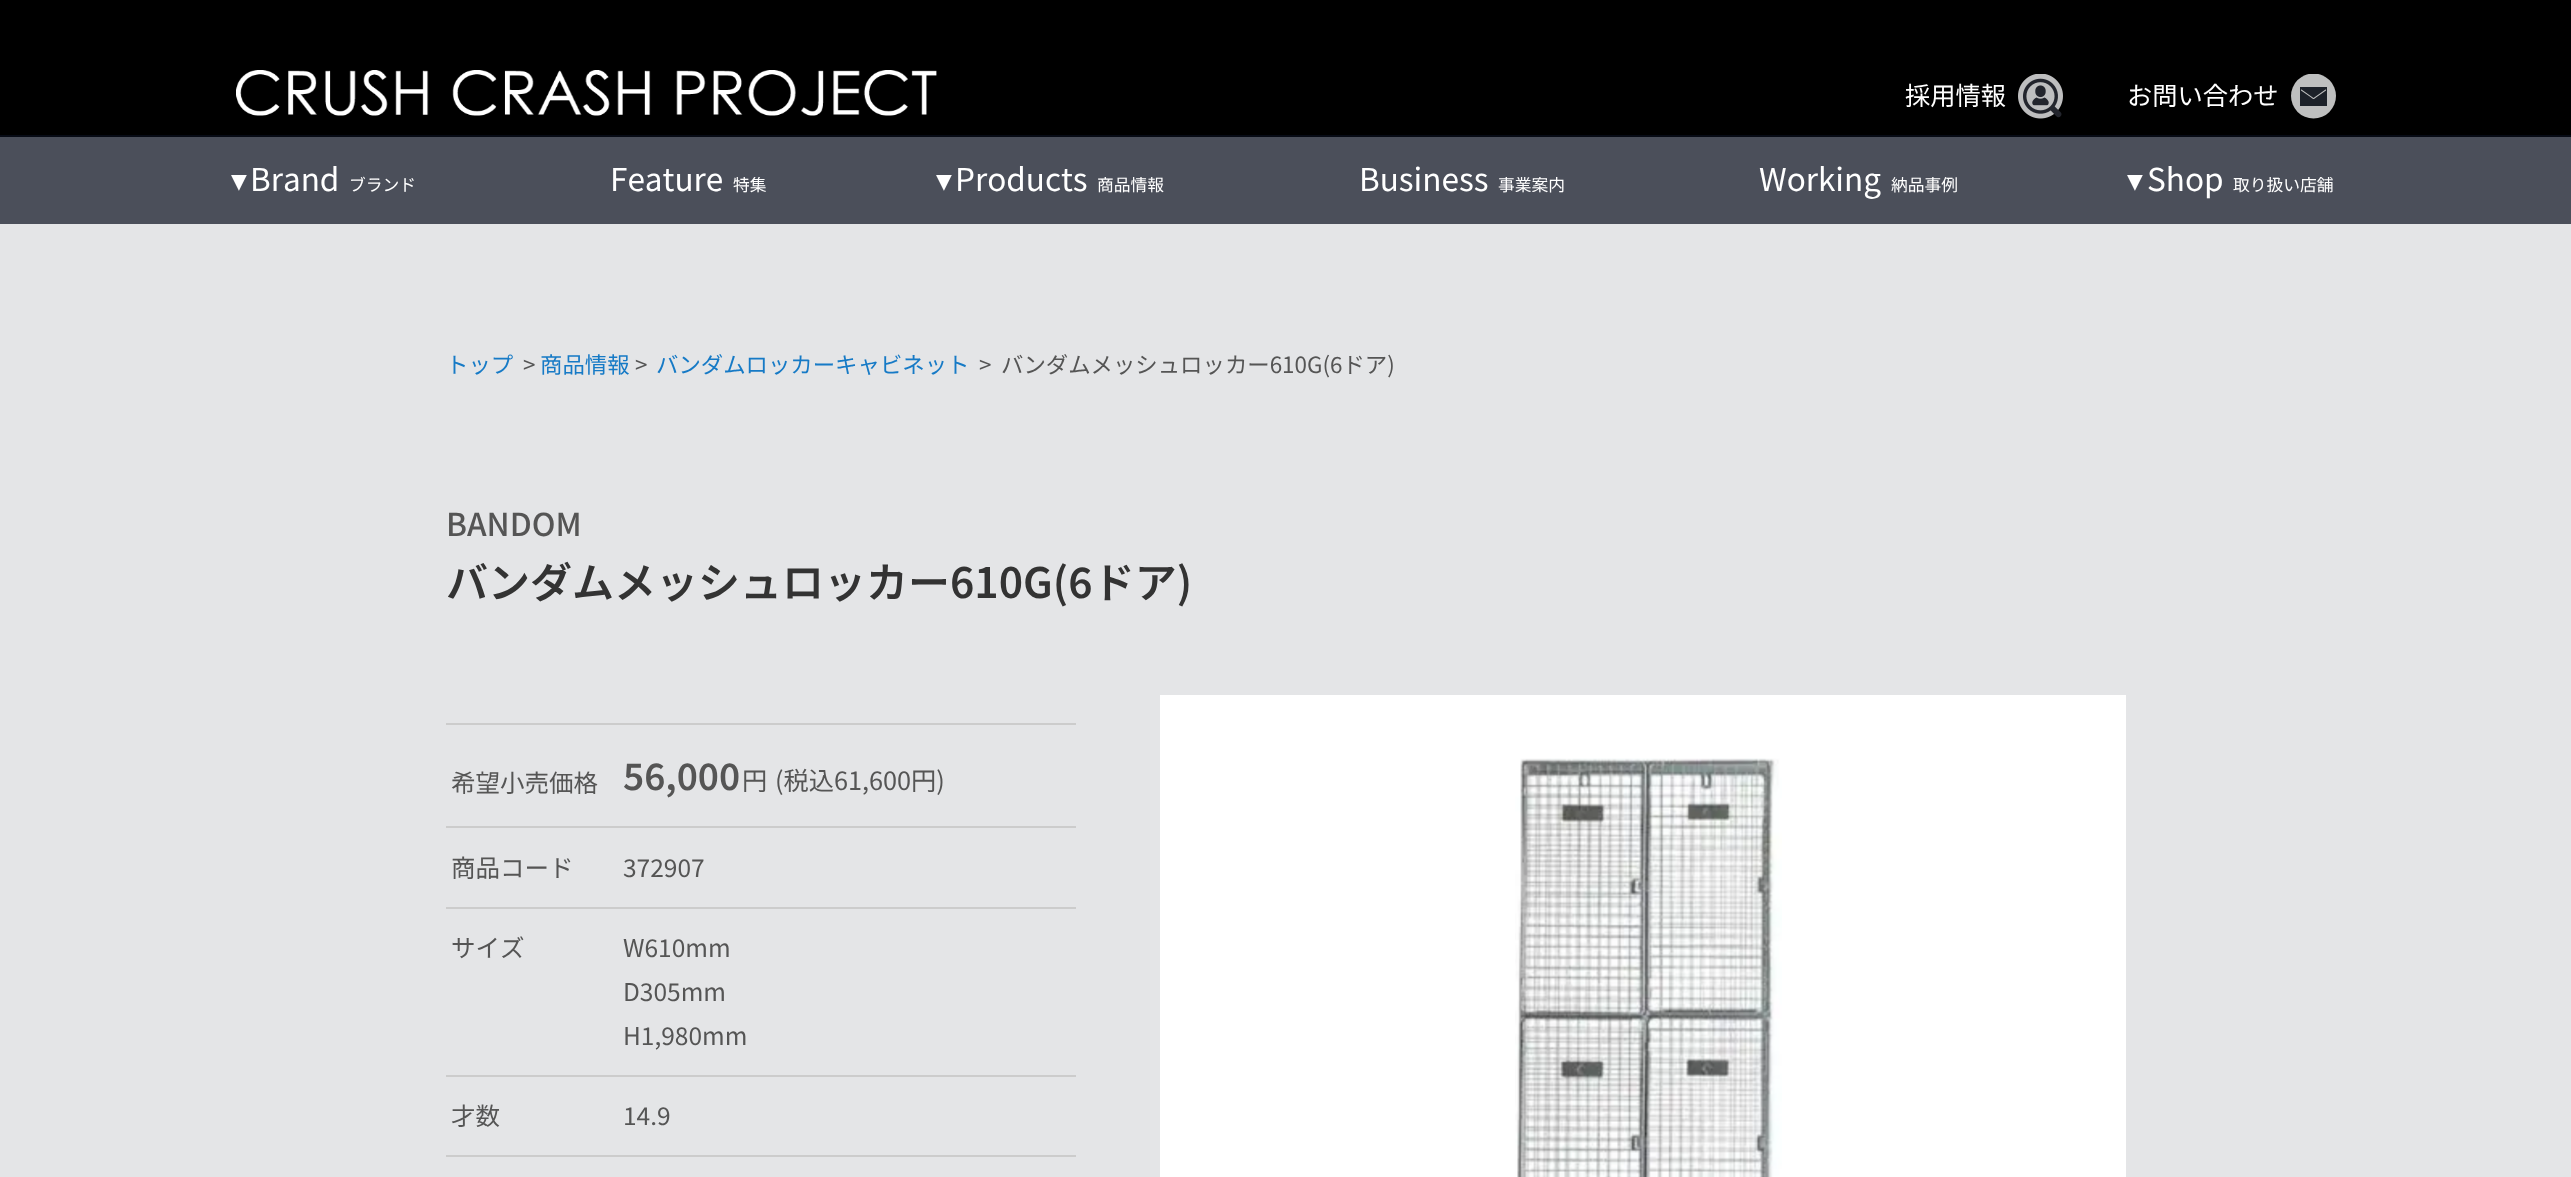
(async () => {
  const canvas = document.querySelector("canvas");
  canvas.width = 2571;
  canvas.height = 1177;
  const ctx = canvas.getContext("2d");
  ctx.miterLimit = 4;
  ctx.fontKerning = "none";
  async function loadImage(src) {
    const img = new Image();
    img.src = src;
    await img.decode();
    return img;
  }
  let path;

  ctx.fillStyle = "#e4e5e7";
  ctx.fillRect(0, 0, 2571, 1177);
  for (const [x, y, w, h, color] of [
    [0, 137, 2571, 87, "#4b4f5a"],
    [0, 0, 2571, 135, "#000000"],
    [0, 135, 2571, 2, "#070b15"],
  ]) {
    ctx.fillStyle = color;
    ctx.fillRect(x, y, w, h);
  }
  ctx.drawImage(await loadImage("img/1.png"), 236, 70, 701, 46);
  ctx.drawImage(await loadImage("img/2.png"), 2018, 74, 45, 45);
  ctx.save();
  ctx.beginPath();
  ctx.rect(2291, 74, 45, 45);
  ctx.clip();
  ctx.fillStyle = "#bebfbf";
  ctx.beginPath();
  ctx.arc(2313.5, 96, 22.5, 0, Math.PI * 2);
  ctx.fill();
  ctx.restore();
  ctx.fillStyle = "#1c2129";
  ctx.fillRect(2300, 87, 27, 19);
  ctx.fillStyle = "#bebfbf";
  path = new Path2D("M2325.5 89.5L2313.5 98L2301.5 89.5H2301V90.5L2309 96C2314 99.5 2312.5 100 2316 97.5L2326 90.5V89.5Z");
  ctx.fill(path);
  for (const [x, y, w, h, color] of [
    [446, 723, 630, 2, "#cccccc"],
    [446, 826, 630, 2, "#cccccc"],
    [446, 907, 630, 2, "#cccccc"],
    [446, 1075, 630, 2, "#cccccc"],
    [446, 1155, 630, 2, "#cccccc"],
    [1160, 695, 966, 482, "#ffffff"],
  ]) {
    ctx.fillStyle = color;
    ctx.fillRect(x, y, w, h);
  }
  ctx.drawImage(await loadImage("img/3.png"), 1515, 758, 267, 419);
  ctx.font = "25.25px Noto Sans JP";
  ctx.fillText("採用情報", 1905, 105);
  ctx.fillText("お問い合わせ", 2127, 105);
  ctx.font = "31.5px DejaVu Sans";
  ctx.fillText("▾", 231, 191);
  ctx.font = "31.5px Noto Sans JP";
  ctx.fillText("Brand", 250, 191);
  ctx.font = "16.75px Noto Sans JP";
  ctx.fillText("ブランド", 349, 191);
  ctx.font = "31.5px Noto Sans JP";
  ctx.fillText("Feature", 610, 191);
  ctx.font = "16.75px Noto Sans JP";
  ctx.fillText("特集", 733, 191);
  ctx.font = "31.5px DejaVu Sans";
  ctx.fillText("▾", 936, 191);
  ctx.font = "31.5px Noto Sans JP";
  ctx.fillText("Products", 955, 191);
  ctx.font = "16.75px Noto Sans JP";
  ctx.fillText("商品情報", 1097, 191);
  ctx.font = "31.5px Noto Sans JP";
  ctx.fillText("Business", 1359, 191);
  ctx.font = "16.75px Noto Sans JP";
  ctx.fillText("事業案内", 1498, 191);
  ctx.font = "31.5px Noto Sans JP";
  ctx.fillText("Working", 1759, 191);
  ctx.font = "16.75px Noto Sans JP";
  ctx.fillText("納品事例", 1891, 191);
  ctx.font = "31.5px DejaVu Sans";
  ctx.fillText("▾", 2127, 191);
  ctx.font = "31.5px Noto Sans JP";
  ctx.fillText("Shop", 2147, 191);
  ctx.font = "16.75px Noto Sans JP";
  ctx.fillText("取り扱い店舗", 2233, 191);
  ctx.font = "22.4px Noto Sans JP";
  ctx.fillStyle = "#167ac6";
  ctx.fillText("トップ", 446, 373);
  ctx.fillStyle = "#555555";
  ctx.fillText(">", 523, 373);
  ctx.fillStyle = "#167ac6";
  ctx.fillText("商品情報", 540, 373);
  ctx.fillStyle = "#555555";
  ctx.fillText(">", 635, 373);
  ctx.fillStyle = "#167ac6";
  ctx.fillText("バンダムロッカーキャビネット", 656, 373);
  ctx.fillStyle = "#555555";
  ctx.fillText(">", 979, 373);
  ctx.fillText("バンダムメッシュロッカー610G(6ドア)", 1001, 373);
  ctx.font = "500 31.5px Noto Sans JP";
  ctx.fillText("BANDOM", 446, 536);
  ctx.font = "600 42px Noto Sans JP";
  ctx.fillStyle = "#333333";
  ctx.fillText("バンダムメッシュロッカー610G(6ドア)", 446, 598);
  ctx.font = "24.5px Noto Sans JP";
  ctx.fillStyle = "#555555";
  ctx.fillText("希望小売価格", 451, 792);
  ctx.font = "600 36.5px Noto Sans JP";
  ctx.fillText("56,000", 623, 790);
  ctx.font = "25.25px Noto Sans JP";
  ctx.fillText("円", 742, 790);
  ctx.fillText("(税込61,600円)", 775, 790);
  ctx.font = "24.5px Noto Sans JP";
  for (const [text, x, y] of [
    ["商品コード", 451, 877],
    ["372907", 623, 877],
    ["サイズ", 451, 957],
    ["W610mm", 623, 957],
    ["D305mm", 623, 1001],
    ["H1,980mm", 623, 1045],
    ["才数", 451, 1125],
    ["14.9", 623, 1125],
  ]) {
    ctx.fillText(text, x, y);
  }
})();
